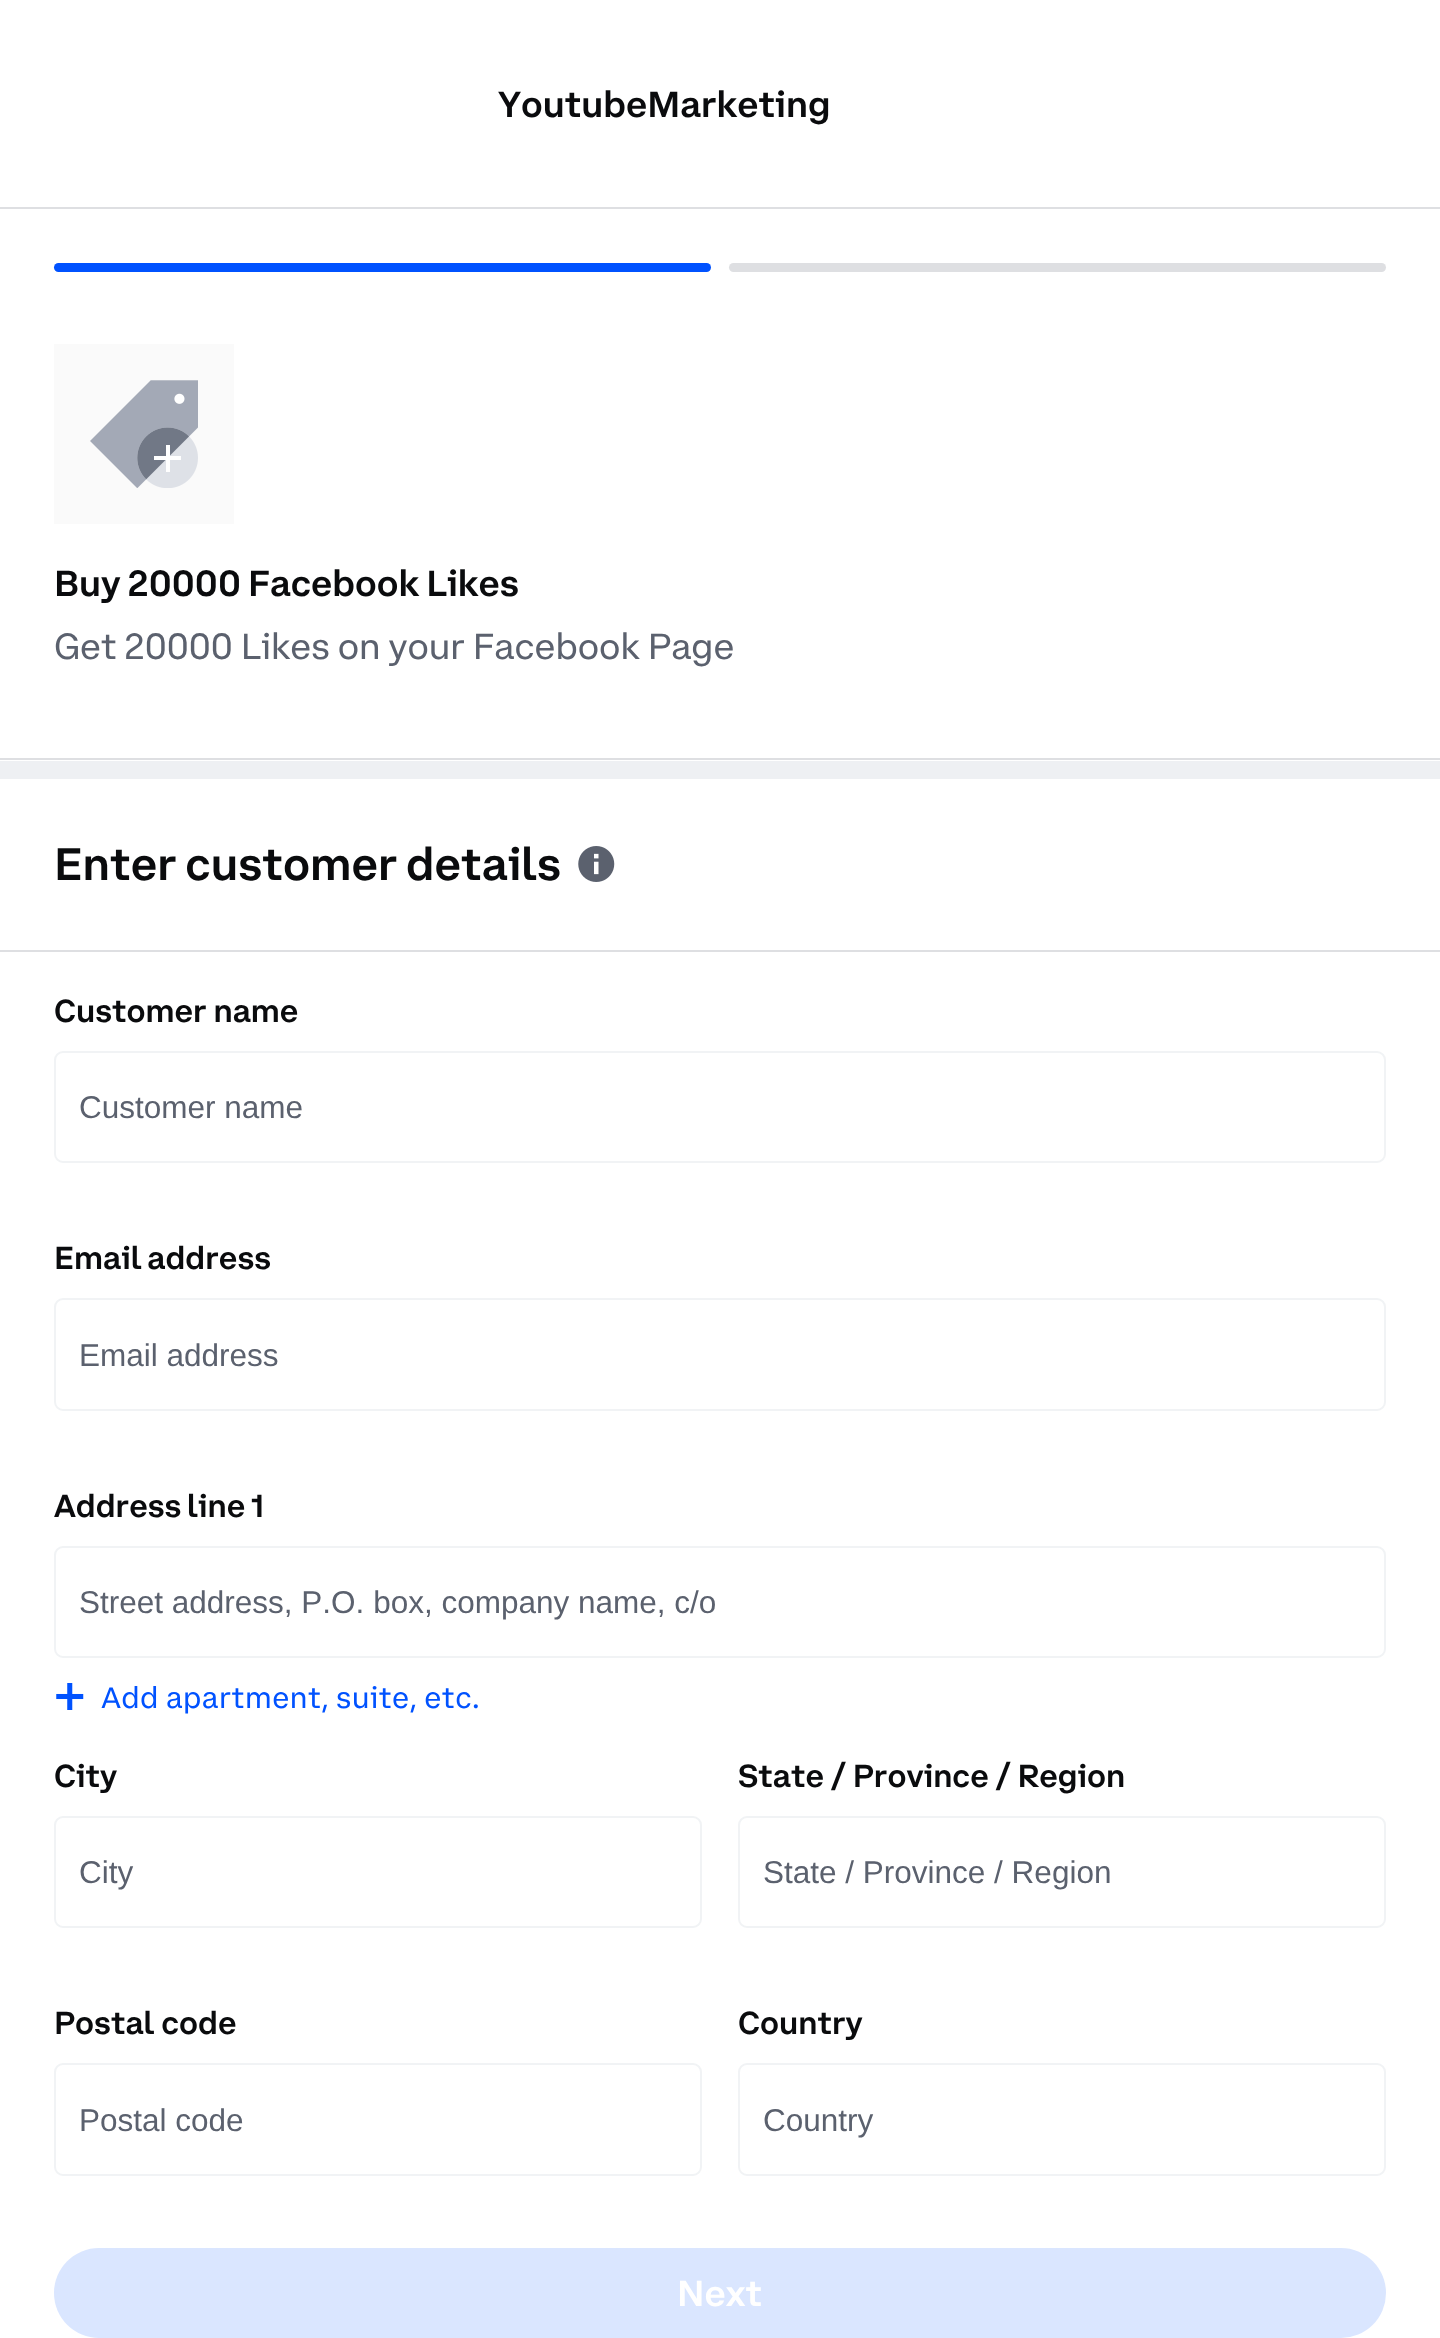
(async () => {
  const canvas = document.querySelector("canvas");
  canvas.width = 1440;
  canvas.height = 2338;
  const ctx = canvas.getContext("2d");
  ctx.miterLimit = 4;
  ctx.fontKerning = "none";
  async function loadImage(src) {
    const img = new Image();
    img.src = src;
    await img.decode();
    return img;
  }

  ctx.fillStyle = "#ffffff";
  ctx.fillRect(0, 0, 1440, 2338);
  ctx.fillStyle = "#dedfe2";
  ctx.fillRect(0, 207, 1440, 2);
  ctx.fillStyle = "#0052ff";
  ctx.beginPath();
  ctx.roundRect(54, 263, 657, 9, 4.5);
  ctx.fill();
  ctx.fillStyle = "#dedfe2";
  ctx.beginPath();
  ctx.roundRect(729, 263, 657, 9, 4.5);
  ctx.fill();
  ctx.fillRect(0, 758, 1440, 2);
  ctx.fillStyle = "#fafafa";
  ctx.fillRect(54, 344, 180, 180);
  ctx.drawImage(await loadImage("img/1.png"), 90, 380, 108, 108);
  ctx.fillStyle = "#eef0f3";
  ctx.fillRect(0, 761, 1440, 18);
  ctx.fillStyle = "#dedfe2";
  ctx.fillRect(0, 950, 1440, 2);
  ctx.drawImage(await loadImage("img/2.png"), 578, 846, 37, 36);
  ctx.beginPath();
  ctx.roundRect(55, 1052, 1330, 110, 8);
  ctx.strokeStyle = "#f1f3f5";
  ctx.lineWidth = 2;
  ctx.stroke();
  ctx.beginPath();
  ctx.roundRect(55, 1299, 1330, 111, 8);
  ctx.stroke();
  ctx.beginPath();
  ctx.roundRect(55, 1547, 1330, 110, 8);
  ctx.stroke();
  ctx.drawImage(await loadImage("img/3.png"), 56, 1683, 28, 27);
  ctx.beginPath();
  ctx.roundRect(55, 1817, 646, 110, 8);
  ctx.stroke();
  ctx.beginPath();
  ctx.roundRect(739, 1817, 646, 110, 8);
  ctx.stroke();
  ctx.beginPath();
  ctx.roundRect(55, 2064, 646, 111, 8);
  ctx.stroke();
  ctx.beginPath();
  ctx.roundRect(739, 2064, 646, 111, 8);
  ctx.stroke();
  ctx.fillStyle = "#dae6ff";
  ctx.beginPath();
  ctx.roundRect(54, 2248, 1332, 90, 45);
  ctx.fill();
  ctx.font = "500 36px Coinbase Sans";
  ctx.fillStyle = "#0a0b0d";
  ctx.fillText("YoutubeMarketing", 498, 117);
  ctx.wordSpacing = "-0.5px";
  ctx.fillText("Buy 20000 Facebook Likes", 54, 596);
  ctx.wordSpacing = "-0.25px";
  ctx.font = "36px Coinbase Sans";
  ctx.fillStyle = "#5b616e";
  ctx.fillText("Get 20000 Likes on your Facebook Page", 54, 659);
  ctx.wordSpacing = "-1px";
  ctx.font = "500 45px Coinbase Sans";
  ctx.fillStyle = "#0a0b0d";
  ctx.fillText("Enter customer details", 54, 880);
  ctx.wordSpacing = "0px";
  ctx.font = "500 31.5px Coinbase Sans";
  ctx.fillText("Customer name", 54, 1022);
  ctx.font = "31.5px Liberation Sans";
  ctx.fillStyle = "#5b616e";
  ctx.fillText("Customer name", 79, 1118);
  ctx.wordSpacing = "-1px";
  ctx.font = "500 31.5px Coinbase Sans";
  ctx.fillStyle = "#0a0b0d";
  ctx.fillText("Email address", 54, 1269);
  ctx.wordSpacing = "0px";
  ctx.font = "31.5px Liberation Sans";
  ctx.fillStyle = "#5b616e";
  ctx.fillText("Email address", 79, 1366);
  ctx.wordSpacing = "-1px";
  ctx.font = "500 31.5px Coinbase Sans";
  ctx.fillStyle = "#0a0b0d";
  ctx.fillText("Address line 1", 54, 1517);
  ctx.wordSpacing = "0px";
  ctx.font = "31.5px Liberation Sans";
  ctx.fillStyle = "#5b616e";
  ctx.fillText("Street address, P.O. box, company name, c/o", 79, 1613);
  ctx.font = "29.25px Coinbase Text";
  ctx.fillStyle = "#0052ff";
  ctx.fillText("Add apartment, suite, etc.", 101, 1708);
  ctx.font = "500 31.5px Coinbase Sans";
  ctx.fillStyle = "#0a0b0d";
  ctx.fillText("City", 54, 1787);
  ctx.font = "31.5px Liberation Sans";
  ctx.fillStyle = "#5b616e";
  ctx.fillText("City", 79, 1883);
  ctx.wordSpacing = "-0.5px";
  ctx.font = "500 31.5px Coinbase Sans";
  ctx.fillStyle = "#0a0b0d";
  ctx.fillText("State / Province / Region", 738, 1787);
  ctx.wordSpacing = "0px";
  ctx.font = "31.5px Liberation Sans";
  ctx.fillStyle = "#5b616e";
  ctx.fillText("State / Province / Region", 763, 1883);
  ctx.font = "500 31.5px Coinbase Sans";
  ctx.fillStyle = "#0a0b0d";
  ctx.fillText("Postal code", 54, 2034);
  ctx.font = "31.5px Liberation Sans";
  ctx.fillStyle = "#5b616e";
  ctx.fillText("Postal code", 79, 2131);
  ctx.font = "500 31.5px Coinbase Sans";
  ctx.fillStyle = "#0a0b0d";
  ctx.fillText("Country", 738, 2034);
  ctx.font = "31.5px Liberation Sans";
  ctx.fillStyle = "#5b616e";
  ctx.fillText("Country", 763, 2131);
  ctx.font = "500 36px Coinbase Sans";
  ctx.fillStyle = "#ffffff";
  ctx.fillText("Next", 677, 2306);
})();
